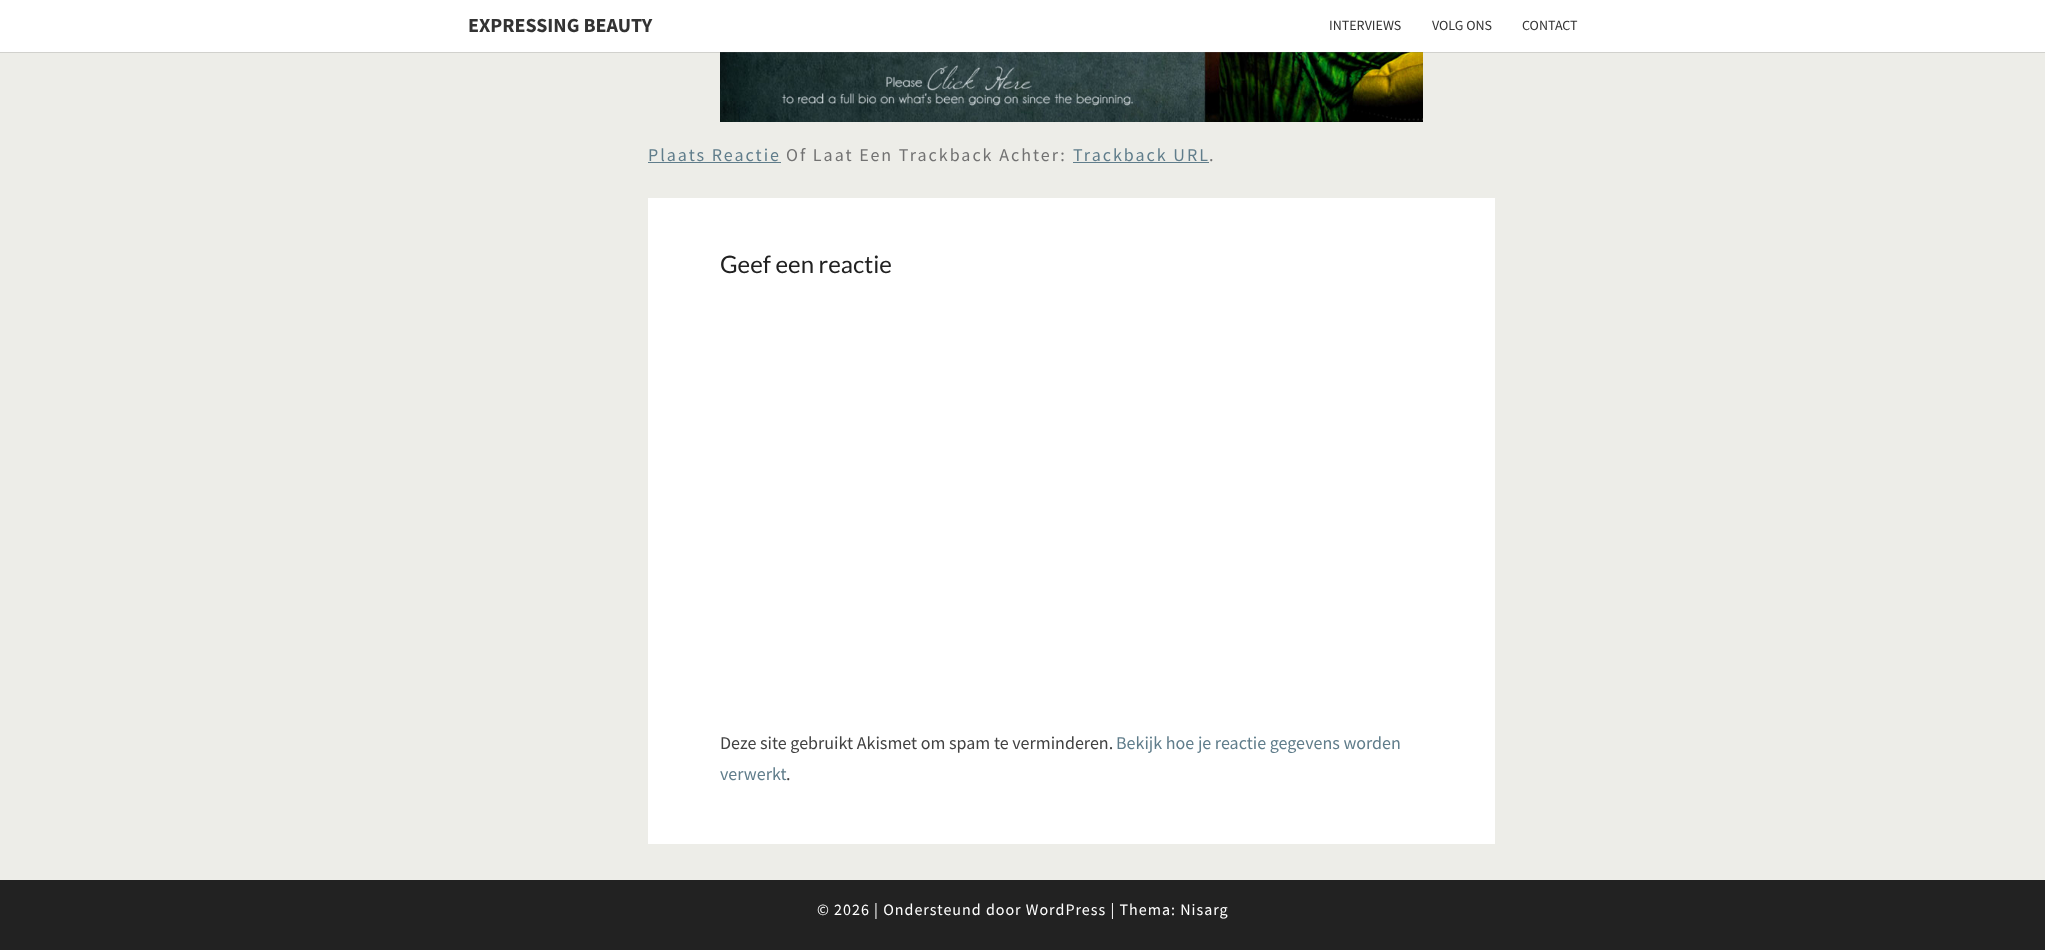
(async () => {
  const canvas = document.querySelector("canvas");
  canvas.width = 2045;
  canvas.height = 950;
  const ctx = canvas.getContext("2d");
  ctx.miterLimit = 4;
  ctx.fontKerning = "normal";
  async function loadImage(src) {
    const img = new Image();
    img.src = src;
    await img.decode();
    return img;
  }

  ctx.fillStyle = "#edede8";
  ctx.fillRect(0, 0, 2045, 950);
  ctx.drawImage(await loadImage("img/1.png"), 720, 52, 703, 70);
  ctx.fillStyle = "rgba(100, 100, 100, 0.2)";
  ctx.filter = "blur(0.5px)";
  ctx.beginPath();
  ctx.rect(0, 1, 2045, 52);
  ctx.fill();
  ctx.filter = "none";
  for (const [x, y, w, h, color] of [
    [0, 0, 2045, 52, "#ffffff"],
    [648, 162, 133, 1, "#607d8b"],
    [1073, 162, 136, 1, "#607d8b"],
    [648, 198, 847, 646, "#ffffff"],
    [0, 880, 2045, 70, "#222222"],
  ]) {
    ctx.fillStyle = color;
    ctx.fillRect(x, y, w, h);
  }
  ctx.font = "bold 20px Source Sans Pro";
  ctx.fillStyle = "#333333";
  ctx.fillText("EXPRESSING BEAUTY", 468, 32);
  ctx.font = "14px Source Sans Pro";
  for (const [text, x, y] of [
    ["INTERVIEWS", 1329, 30],
    ["VOLG ONS", 1432, 30],
    ["CONTACT", 1522, 30],
  ]) {
    ctx.fillText(text, x, y);
  }
  ctx.letterSpacing = "2px";
  ctx.font = "18px Source Sans Pro";
  ctx.fillStyle = "#607d8b";
  ctx.fillText("Plaats Reactie", 648, 161);
  ctx.fillStyle = "#727272";
  ctx.fillText("Of Laat Een Trackback Achter:", 786, 161);
  ctx.fillStyle = "#607d8b";
  ctx.fillText("Trackback URL", 1073, 161);
  ctx.fillStyle = "#727272";
  ctx.fillText(".", 1209, 161);
  ctx.letterSpacing = "0px";
  ctx.font = "24px Lato";
  ctx.fillStyle = "#212121";
  ctx.fillText("Geef een reactie", 720, 273);
  ctx.font = "18px Source Sans Pro";
  ctx.fillStyle = "#424242";
  ctx.fillText("Deze site gebruikt Akismet om spam te verminderen.", 720, 749);
  ctx.fillStyle = "#607d8b";
  ctx.fillText("Bekijk hoe je reactie gegevens worden", 1116, 749);
  ctx.fillText("verwerkt", 720, 780);
  ctx.fillStyle = "#424242";
  ctx.fillText(".", 786, 780);
  ctx.letterSpacing = "1px";
  ctx.font = "16px Source Sans Pro";
  ctx.fillStyle = "#ffffff";
  ctx.fillText("© 2026 | Ondersteund door WordPress | Thema: Nisarg", 817, 915);
})();
